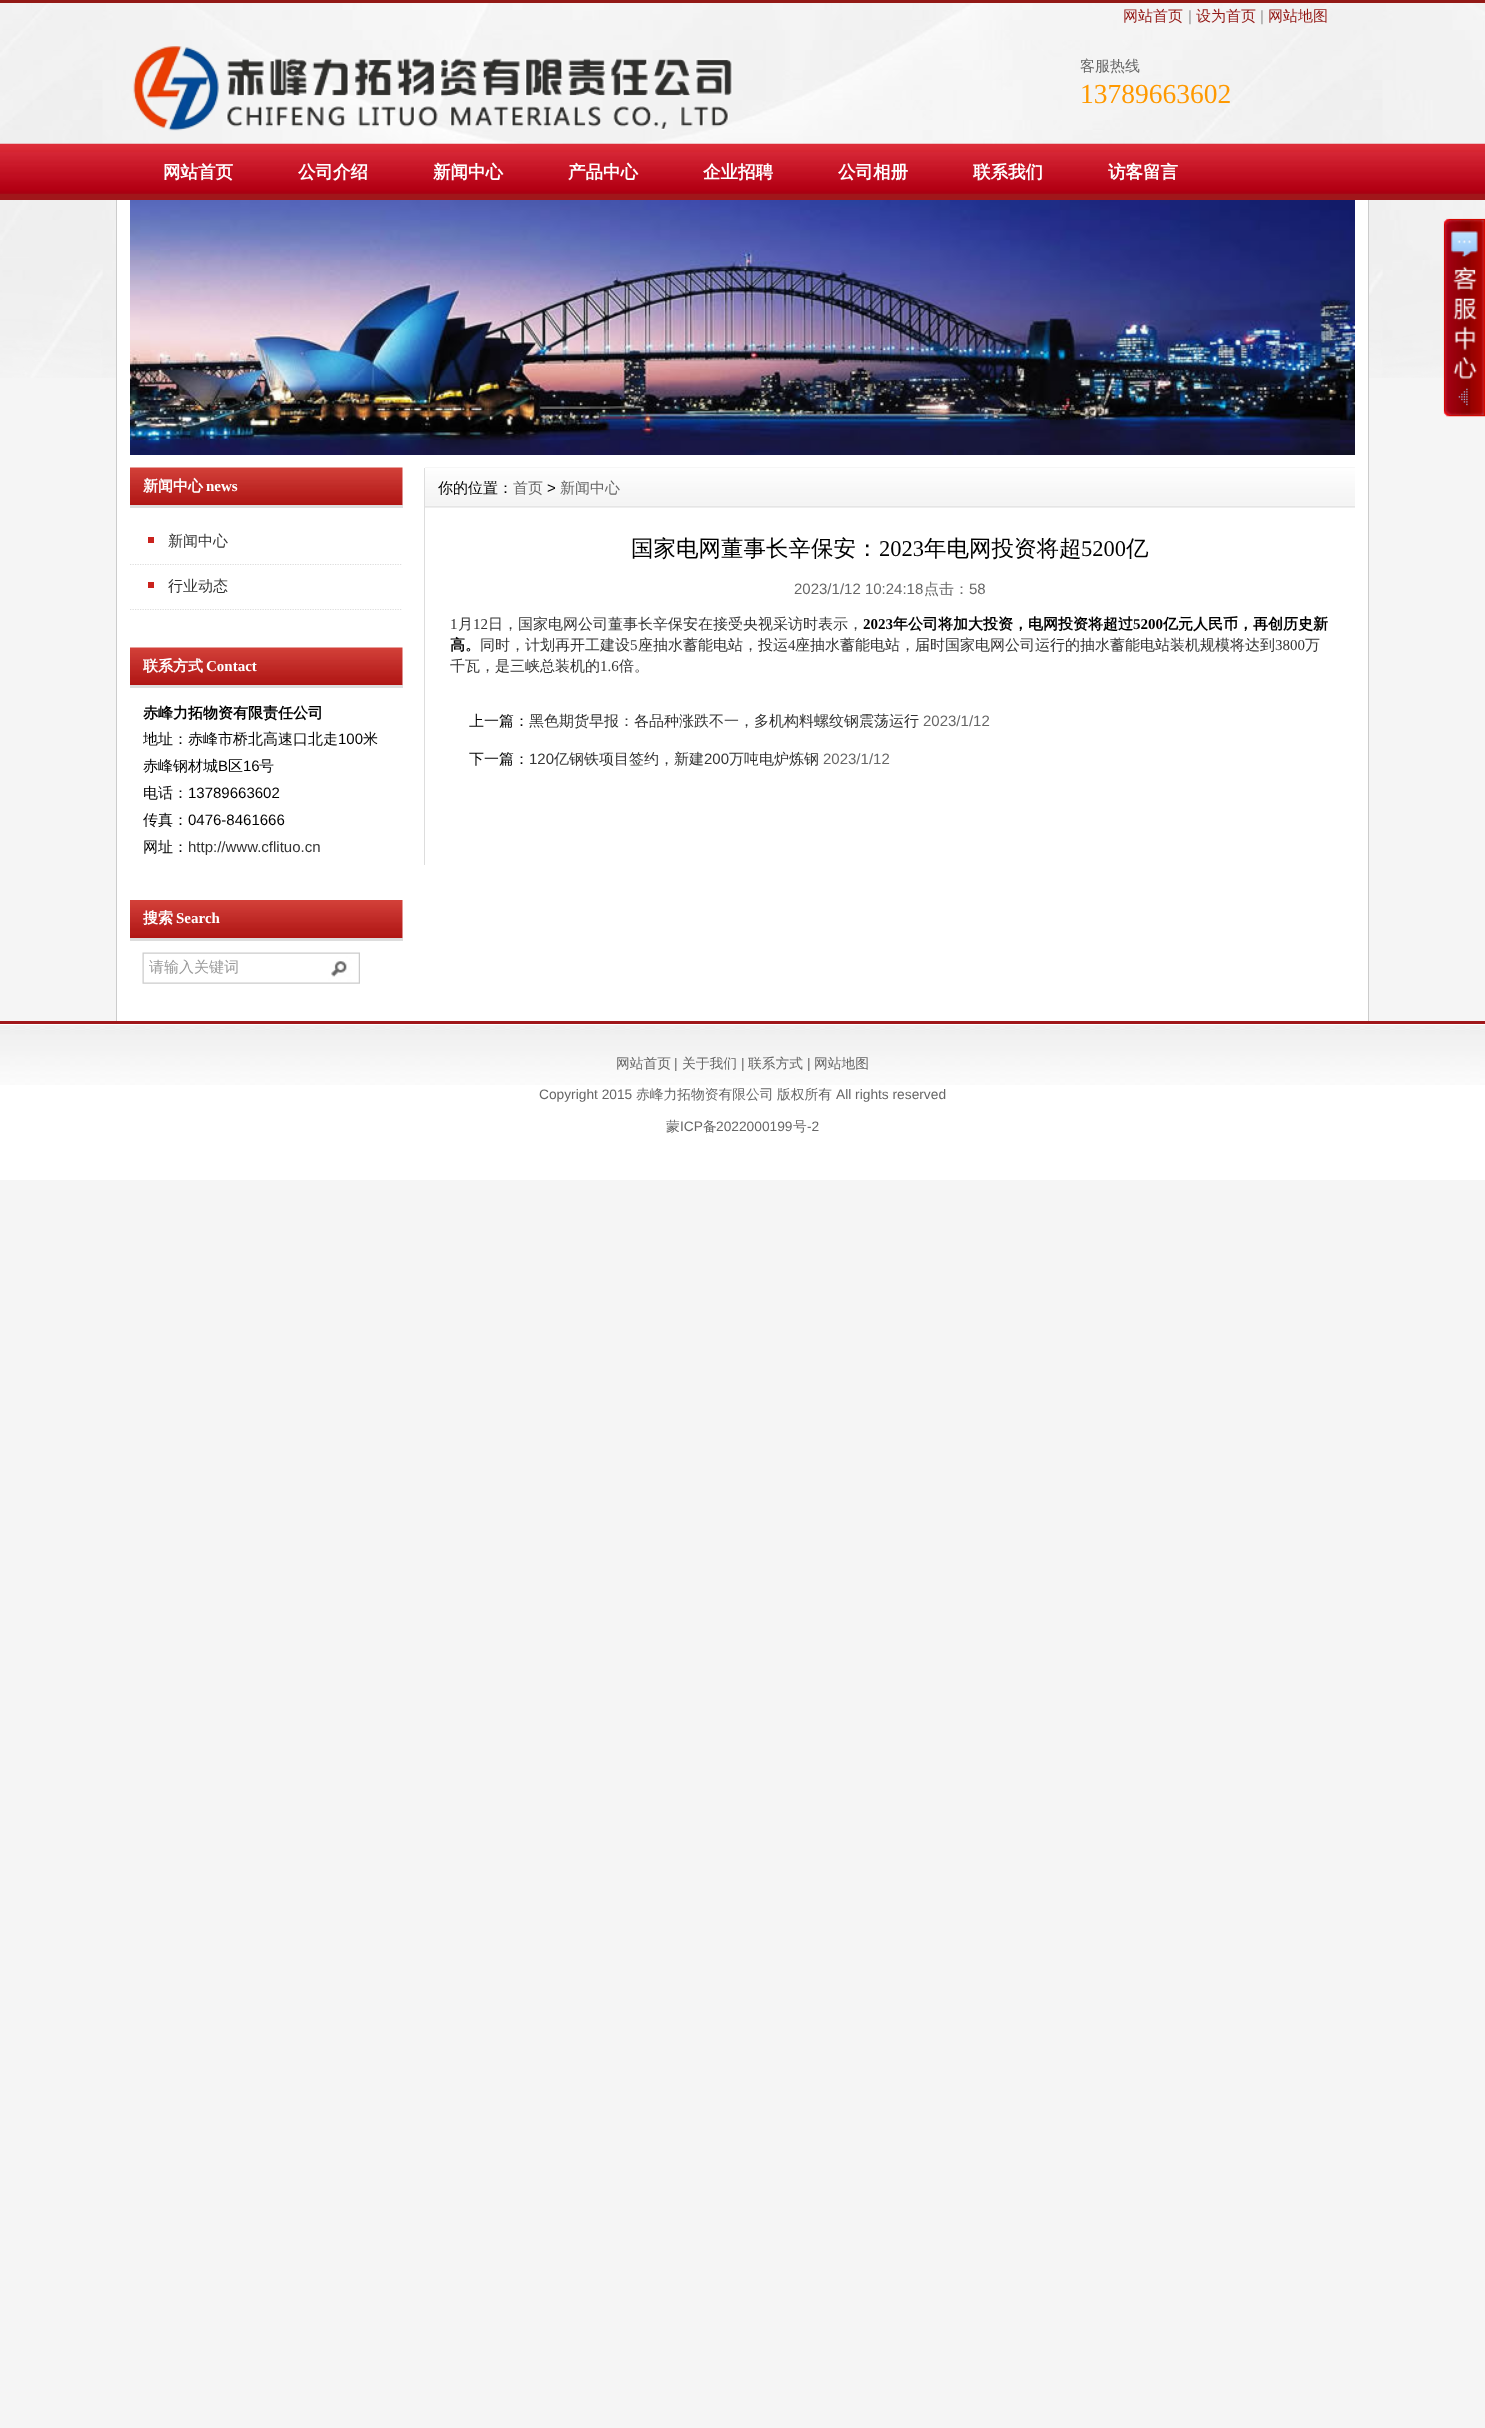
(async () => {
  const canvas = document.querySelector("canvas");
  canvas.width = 1485;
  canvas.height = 2428;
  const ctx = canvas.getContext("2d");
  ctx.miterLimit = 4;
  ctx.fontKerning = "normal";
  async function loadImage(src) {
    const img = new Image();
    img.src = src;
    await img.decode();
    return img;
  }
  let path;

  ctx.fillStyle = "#f5f5f5";
  ctx.fillRect(0, 0, 1485, 2428);
  ctx.drawImage(await loadImage("img/1.png"), 0, 3, 1485, 375);
  ctx.fillStyle = "#931916";
  ctx.fillRect(0, 0, 1485, 3);
  ctx.drawImage(await loadImage("img/2.png"), 133, 46, 600, 85);
  ctx.fillStyle = "#a0171a";
  ctx.fillRect(0, 193, 1485, 7);
  ctx.drawImage(await loadImage("img/3.png"), 0, 143, 1485, 51);
  for (const [x, y, w, h, color] of [
    [117, 200, 1251, 821, "#ffffff"],
    [1368, 200, 1, 821, "#cccccc"],
    [116, 200, 1, 821, "#cccccc"],
  ]) {
    ctx.fillStyle = color;
    ctx.fillRect(x, y, w, h);
  }
  ctx.drawImage(await loadImage("img/4.png"), 130, 200, 1225, 255);
  ctx.drawImage(await loadImage("img/5.png"), 130, 467, 273, 38);
  ctx.fillStyle = "#dddddd";
  ctx.fillRect(130, 505, 273, 3);
  ctx.fillStyle = "#ca221d";
  ctx.fillRect(148, 537, 6, 6);
  path = new Path2D("M130 564.5H402.5");
  ctx.strokeStyle = "#dddddd";
  ctx.lineWidth = 1.2;
  ctx.setLineDash([1.25, 1.25]);
  ctx.stroke(path);
  ctx.fillRect(148, 582, 6, 6);
  path = new Path2D("M130 609.5H402.5");
  ctx.stroke(path);
  ctx.drawImage(await loadImage("img/6.png"), 130, 647, 273, 38);
  ctx.fillStyle = "#dddddd";
  ctx.fillRect(130, 685, 273, 3);
  ctx.drawImage(await loadImage("img/7.png"), 130, 900, 273, 38);
  ctx.fillRect(130, 938, 273, 3);
  ctx.drawImage(await loadImage("img/8.png"), 142, 952, 218, 32);
  ctx.fillRect(424, 468, 1, 397);
  ctx.drawImage(await loadImage("img/9.png"), 425, 467, 930, 41);
  ctx.fillStyle = "#ffffff";
  ctx.fillRect(0, 1024, 1485, 156);
  ctx.drawImage(await loadImage("img/10.png"), 0, 1025, 1485, 60);
  ctx.fillStyle = "#a0171a";
  ctx.fillRect(0, 1021, 1485, 3);
  ctx.drawImage(await loadImage("img/11.png"), 1443, 218, 42, 199);
  ctx.font = "500 15px WenQuanYi Zen Hei";
  ctx.fillStyle = "#931916";
  ctx.fillText("网站首页", 1123, 21);
  ctx.font = "15px Liberation Sans";
  ctx.fillStyle = "#999999";
  ctx.fillText("|", 1188, 21);
  ctx.font = "500 15px WenQuanYi Zen Hei";
  ctx.fillStyle = "#931916";
  ctx.fillText("设为首页", 1196, 21);
  ctx.font = "15px Liberation Sans";
  ctx.fillStyle = "#999999";
  ctx.fillText("|", 1260, 21);
  ctx.font = "500 15px WenQuanYi Zen Hei";
  ctx.fillStyle = "#931916";
  ctx.fillText("网站地图", 1268, 21);
  ctx.fillStyle = "#666666";
  ctx.fillText("客服热线", 1080, 71);
  ctx.font = "27.5px Liberation Serif";
  ctx.fillStyle = "#ff9900";
  ctx.fillText("13789663602", 1080, 103);
  ctx.font = "bold 17.5px WenQuanYi Zen Hei";
  ctx.fillStyle = "#ffffff";
  for (const [text, x, y] of [
    ["网站首页", 163, 178],
    ["公司介绍", 298, 178],
    ["新闻中心", 433, 178],
    ["产品中心", 568, 178],
    ["企业招聘", 703, 178],
    ["公司相册", 838, 178],
    ["联系我们", 973, 178],
    ["访客留言", 1108, 178],
  ]) {
    ctx.fillText(text, x, y);
  }
  ctx.font = "bold 15px WenQuanYi Zen Hei";
  ctx.fillText("新闻中心", 143, 491);
  ctx.font = "bold 15px Liberation Serif";
  ctx.fillText("news", 206, 491);
  ctx.font = "500 15px WenQuanYi Zen Hei";
  ctx.fillStyle = "#333333";
  ctx.fillText("新闻中心", 168, 546);
  ctx.fillText("行业动态", 168, 591);
  ctx.font = "bold 15px WenQuanYi Zen Hei";
  ctx.fillStyle = "#ffffff";
  ctx.fillText("联系方式", 143, 671);
  ctx.font = "bold 15px Liberation Serif";
  ctx.fillText("Contact", 206, 671);
  ctx.font = "bold 15px WenQuanYi Zen Hei";
  ctx.fillStyle = "#000000";
  ctx.fillText("赤峰力拓物资有限责任公司", 143, 718);
  ctx.font = "500 15px WenQuanYi Zen Hei";
  ctx.fillText("地址：赤峰市桥北高速口北走", 143, 744);
  ctx.font = "15px Liberation Sans";
  ctx.fillText("100", 338, 744);
  ctx.font = "500 15px WenQuanYi Zen Hei";
  ctx.fillText("米", 363, 744);
  ctx.fillText("赤峰钢材城", 143, 771);
  ctx.font = "15px Liberation Sans";
  ctx.fillText("B", 218, 771);
  ctx.font = "500 15px WenQuanYi Zen Hei";
  ctx.fillText("区", 228, 771);
  ctx.font = "15px Liberation Sans";
  ctx.fillText("16", 243, 771);
  ctx.font = "500 15px WenQuanYi Zen Hei";
  ctx.fillText("号", 259, 771);
  ctx.fillText("电话：", 143, 798);
  ctx.font = "15px Liberation Sans";
  ctx.fillText("13789663602", 188, 798);
  ctx.font = "500 15px WenQuanYi Zen Hei";
  ctx.fillText("传真：", 143, 825);
  ctx.font = "15px Liberation Sans";
  ctx.fillText("0476-8461666", 188, 825);
  ctx.font = "500 15px WenQuanYi Zen Hei";
  ctx.fillText("网址：", 143, 852);
  ctx.font = "15px Liberation Sans";
  ctx.fillStyle = "#333333";
  ctx.fillText("http://www.cflituo.cn", 188, 852);
  ctx.font = "bold 15px WenQuanYi Zen Hei";
  ctx.fillStyle = "#ffffff";
  ctx.fillText("搜索", 143, 923);
  ctx.font = "bold 15px Liberation Serif";
  ctx.fillText("Search", 176, 923);
  ctx.font = "500 15px WenQuanYi Zen Hei";
  ctx.fillStyle = "#999999";
  ctx.fillText("请输入关键词", 149, 972);
  ctx.fillStyle = "#000000";
  ctx.fillText("你的位置：", 438, 493);
  ctx.fillStyle = "#666666";
  ctx.fillText("首页", 513, 493);
  ctx.font = "15px Liberation Sans";
  ctx.fillStyle = "#000000";
  ctx.fillText(">", 547, 493);
  ctx.font = "500 15px WenQuanYi Zen Hei";
  ctx.fillStyle = "#666666";
  ctx.fillText("新闻中心", 560, 493);
  ctx.font = "500 22.5px WenQuanYi Zen Hei";
  ctx.fillStyle = "#000000";
  ctx.fillText("国家电网董事长辛保安：", 631, 556);
  ctx.font = "22.5px Liberation Serif";
  ctx.fillText("2023", 879, 556);
  ctx.font = "500 22.5px WenQuanYi Zen Hei";
  ctx.fillText("年电网投资将超", 924, 556);
  ctx.font = "22.5px Liberation Serif";
  ctx.fillText("5200", 1081, 556);
  ctx.font = "500 22.5px WenQuanYi Zen Hei";
  ctx.fillText("亿", 1126, 556);
  ctx.font = "15px Liberation Sans";
  ctx.fillStyle = "#666666";
  ctx.fillText("2023/1/12 10:24:18", 794, 594);
  ctx.font = "500 15px WenQuanYi Zen Hei";
  ctx.fillText("点击：", 924, 594);
  ctx.font = "15px Liberation Sans";
  ctx.fillText("58", 969, 594);
  ctx.font = "15px Liberation Serif";
  ctx.fillStyle = "#333333";
  ctx.fillText("1", 450, 629);
  ctx.font = "500 15px WenQuanYi Zen Hei";
  ctx.fillText("月", 458, 629);
  ctx.font = "15px Liberation Serif";
  ctx.fillText("12", 473, 629);
  ctx.font = "500 15px WenQuanYi Zen Hei";
  ctx.fillText("日，国家电网公司董事长辛保安在接受央视采访时表示，", 488, 629);
  ctx.font = "bold 15px Liberation Serif";
  ctx.fillStyle = "#000000";
  ctx.fillText("2023", 863, 629);
  ctx.font = "bold 15px WenQuanYi Zen Hei";
  ctx.fillText("年公司将加大投资，电网投资将超过", 893, 629);
  ctx.font = "bold 15px Liberation Serif";
  ctx.fillText("5200", 1133, 629);
  ctx.font = "bold 15px WenQuanYi Zen Hei";
  ctx.fillText("亿元人民币，再创历史新", 1163, 629);
  ctx.fillText("高。", 450, 650);
  ctx.font = "500 15px WenQuanYi Zen Hei";
  ctx.fillStyle = "#333333";
  ctx.fillText("同时，计划再开工建设", 480, 650);
  ctx.font = "15px Liberation Serif";
  ctx.fillText("5", 630, 650);
  ctx.font = "500 15px WenQuanYi Zen Hei";
  ctx.fillText("座抽水蓄能电站，投运", 638, 650);
  ctx.font = "15px Liberation Serif";
  ctx.fillText("4", 788, 650);
  ctx.font = "500 15px WenQuanYi Zen Hei";
  ctx.fillText("座抽水蓄能电站，届时国家电网公司运行的抽水蓄能电站装机规模将达到", 795, 650);
  ctx.font = "15px Liberation Serif";
  ctx.fillText("3800", 1275, 650);
  ctx.font = "500 15px WenQuanYi Zen Hei";
  ctx.fillText("万", 1305, 650);
  ctx.fillText("千瓦，是三峡总装机的", 450, 671);
  ctx.font = "15px Liberation Serif";
  ctx.fillText("1.6", 600, 671);
  ctx.font = "500 15px WenQuanYi Zen Hei";
  ctx.fillText("倍。", 619, 671);
  ctx.fillStyle = "#000000";
  ctx.fillText("上一篇：", 469, 726);
  ctx.fillStyle = "#333333";
  ctx.fillText("黑色期货早报：各品种涨跌不一，多机构料螺纹钢震荡运行", 529, 726);
  ctx.font = "15px Liberation Sans";
  ctx.fillStyle = "#666666";
  ctx.fillText("2023/1/12", 923, 726);
  ctx.font = "500 15px WenQuanYi Zen Hei";
  ctx.fillStyle = "#000000";
  ctx.fillText("下一篇：", 469, 764);
  ctx.font = "15px Liberation Sans";
  ctx.fillStyle = "#333333";
  ctx.fillText("120", 529, 764);
  ctx.font = "500 15px WenQuanYi Zen Hei";
  ctx.fillText("亿钢铁项目签约，新建", 554, 764);
  ctx.font = "15px Liberation Sans";
  ctx.fillText("200", 704, 764);
  ctx.font = "500 15px WenQuanYi Zen Hei";
  ctx.fillText("万吨电炉炼钢", 729, 764);
  ctx.font = "15px Liberation Sans";
  ctx.fillStyle = "#666666";
  ctx.fillText("2023/1/12", 823, 764);
  ctx.font = "500 13.75px WenQuanYi Zen Hei";
  ctx.fillText("网站首页", 616, 1068);
  ctx.font = "13.75px Liberation Sans";
  ctx.fillText("|", 674, 1068);
  ctx.font = "500 13.75px WenQuanYi Zen Hei";
  ctx.fillText("关于我们", 682, 1068);
  ctx.font = "13.75px Liberation Sans";
  ctx.fillText("|", 741, 1068);
  ctx.font = "500 13.75px WenQuanYi Zen Hei";
  ctx.fillText("联系方式", 748, 1068);
  ctx.font = "13.75px Liberation Sans";
  ctx.fillText("|", 807, 1068);
  ctx.font = "500 13.75px WenQuanYi Zen Hei";
  ctx.fillText("网站地图", 814, 1068);
  ctx.font = "13.75px Liberation Sans";
  ctx.fillText("Copyright 2015", 539, 1099);
  ctx.font = "500 13.75px WenQuanYi Zen Hei";
  ctx.fillText("赤峰力拓物资有限公司", 636, 1099);
  ctx.fillText("版权所有", 777, 1099);
  ctx.font = "13.75px Liberation Sans";
  ctx.fillText("All rights reserved", 836, 1099);
  ctx.font = "500 13.75px WenQuanYi Zen Hei";
  ctx.fillText("蒙", 666, 1131);
  ctx.font = "13.75px Liberation Sans";
  ctx.fillText("ICP", 680, 1131);
  ctx.font = "500 13.75px WenQuanYi Zen Hei";
  ctx.fillText("备", 703, 1131);
  ctx.font = "13.75px Liberation Sans";
  ctx.fillText("2022000199", 716, 1131);
  ctx.font = "500 13.75px WenQuanYi Zen Hei";
  ctx.fillText("号", 793, 1131);
  ctx.font = "13.75px Liberation Sans";
  ctx.fillText("-2", 807, 1131);
})();
